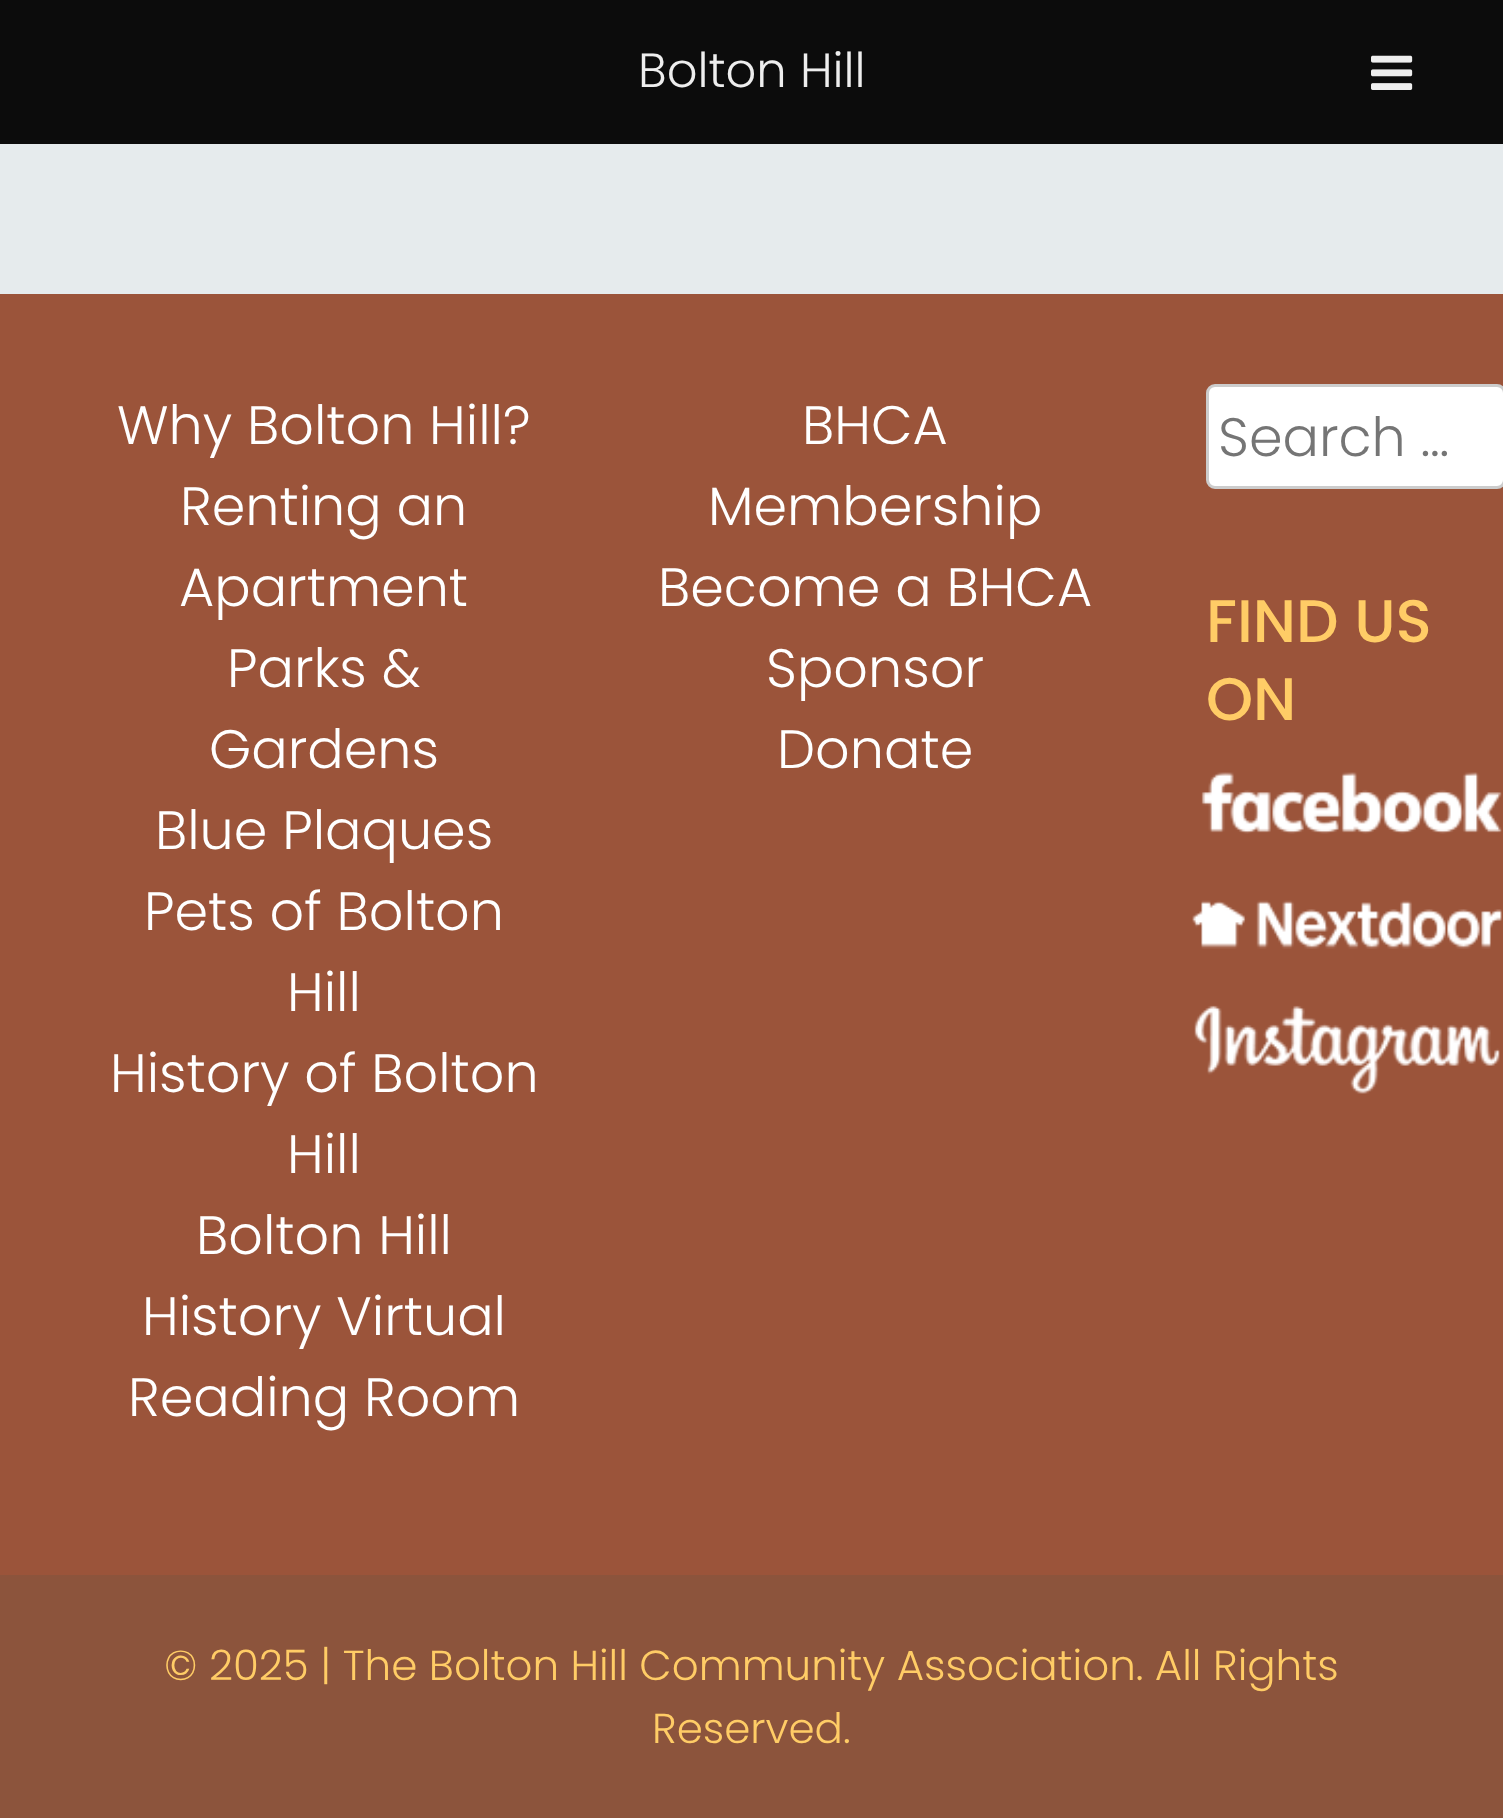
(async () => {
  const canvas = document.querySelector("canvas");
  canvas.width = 1503;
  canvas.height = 1818;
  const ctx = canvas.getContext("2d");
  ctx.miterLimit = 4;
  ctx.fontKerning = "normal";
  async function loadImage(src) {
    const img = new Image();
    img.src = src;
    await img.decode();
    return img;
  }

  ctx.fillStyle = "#e6ebed";
  ctx.fillRect(0, 0, 1503, 1818);
  ctx.fillStyle = "#0c0c0c";
  ctx.fillRect(0, 0, 1503, 144);
  ctx.drawImage(await loadImage("img/1.png"), 1371, 55, 42, 35);
  ctx.fillStyle = "#9b543a";
  ctx.fillRect(0, 294, 1503, 1281);
  ctx.fillStyle = "#ffffff";
  ctx.beginPath();
  ctx.roundRect(1207.5, 385.5, 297, 102, 7.5);
  ctx.fill();
  ctx.strokeStyle = "#cccccc";
  ctx.lineWidth = 3;
  ctx.stroke();
  ctx.drawImage(await loadImage("img/2.png"), 1201, 772, 301, 62);
  ctx.drawImage(await loadImage("img/3.png"), 1192, 900, 310, 49);
  ctx.drawImage(await loadImage("img/4.png"), 1194, 1005, 306, 89);
  ctx.fillStyle = "#8c543c";
  ctx.fillRect(0, 1575, 1503, 243);
  ctx.font = "300 48px Poppins";
  ctx.fillStyle = "#eeeeee";
  ctx.fillText("Bolton Hill", 638, 87);
  ctx.font = "300 54px Poppins";
  ctx.fillStyle = "#ffffff";
  for (const [text, x, y] of [
    ["Why Bolton Hill?", 117, 444],
    ["Renting an", 180, 525],
    ["Apartment", 179, 606],
    ["Parks &", 227, 687],
    ["Gardens", 209, 768],
    ["Blue Plaques", 155, 849],
    ["Pets of Bolton", 144, 930],
    ["Hill", 287, 1011],
    ["History of Bolton", 110, 1092],
    ["Hill", 287, 1173],
    ["Bolton Hill", 196, 1254],
    ["History Virtual", 142, 1335],
    ["Reading Room", 128, 1416],
    ["BHCA", 802, 444],
    ["Membership", 708, 525],
    ["Become a BHCA", 658, 606],
    ["Sponsor", 766, 687],
    ["Donate", 777, 768],
  ]) {
    ctx.fillText(text, x, y);
  }
  ctx.fillStyle = "#757575";
  ctx.fillText("Search …", 1218, 456);
  ctx.font = "500 60px Poppins";
  ctx.fillStyle = "#ffcc66";
  ctx.fillText("FIND US", 1206, 642);
  ctx.fillText("ON", 1206, 720);
  ctx.font = "300 42px Poppins";
  ctx.fillText("© 2025 | The Bolton Hill Community Association. All Rights", 164, 1680);
  ctx.fillText("Reserved.", 652, 1743);
})();
